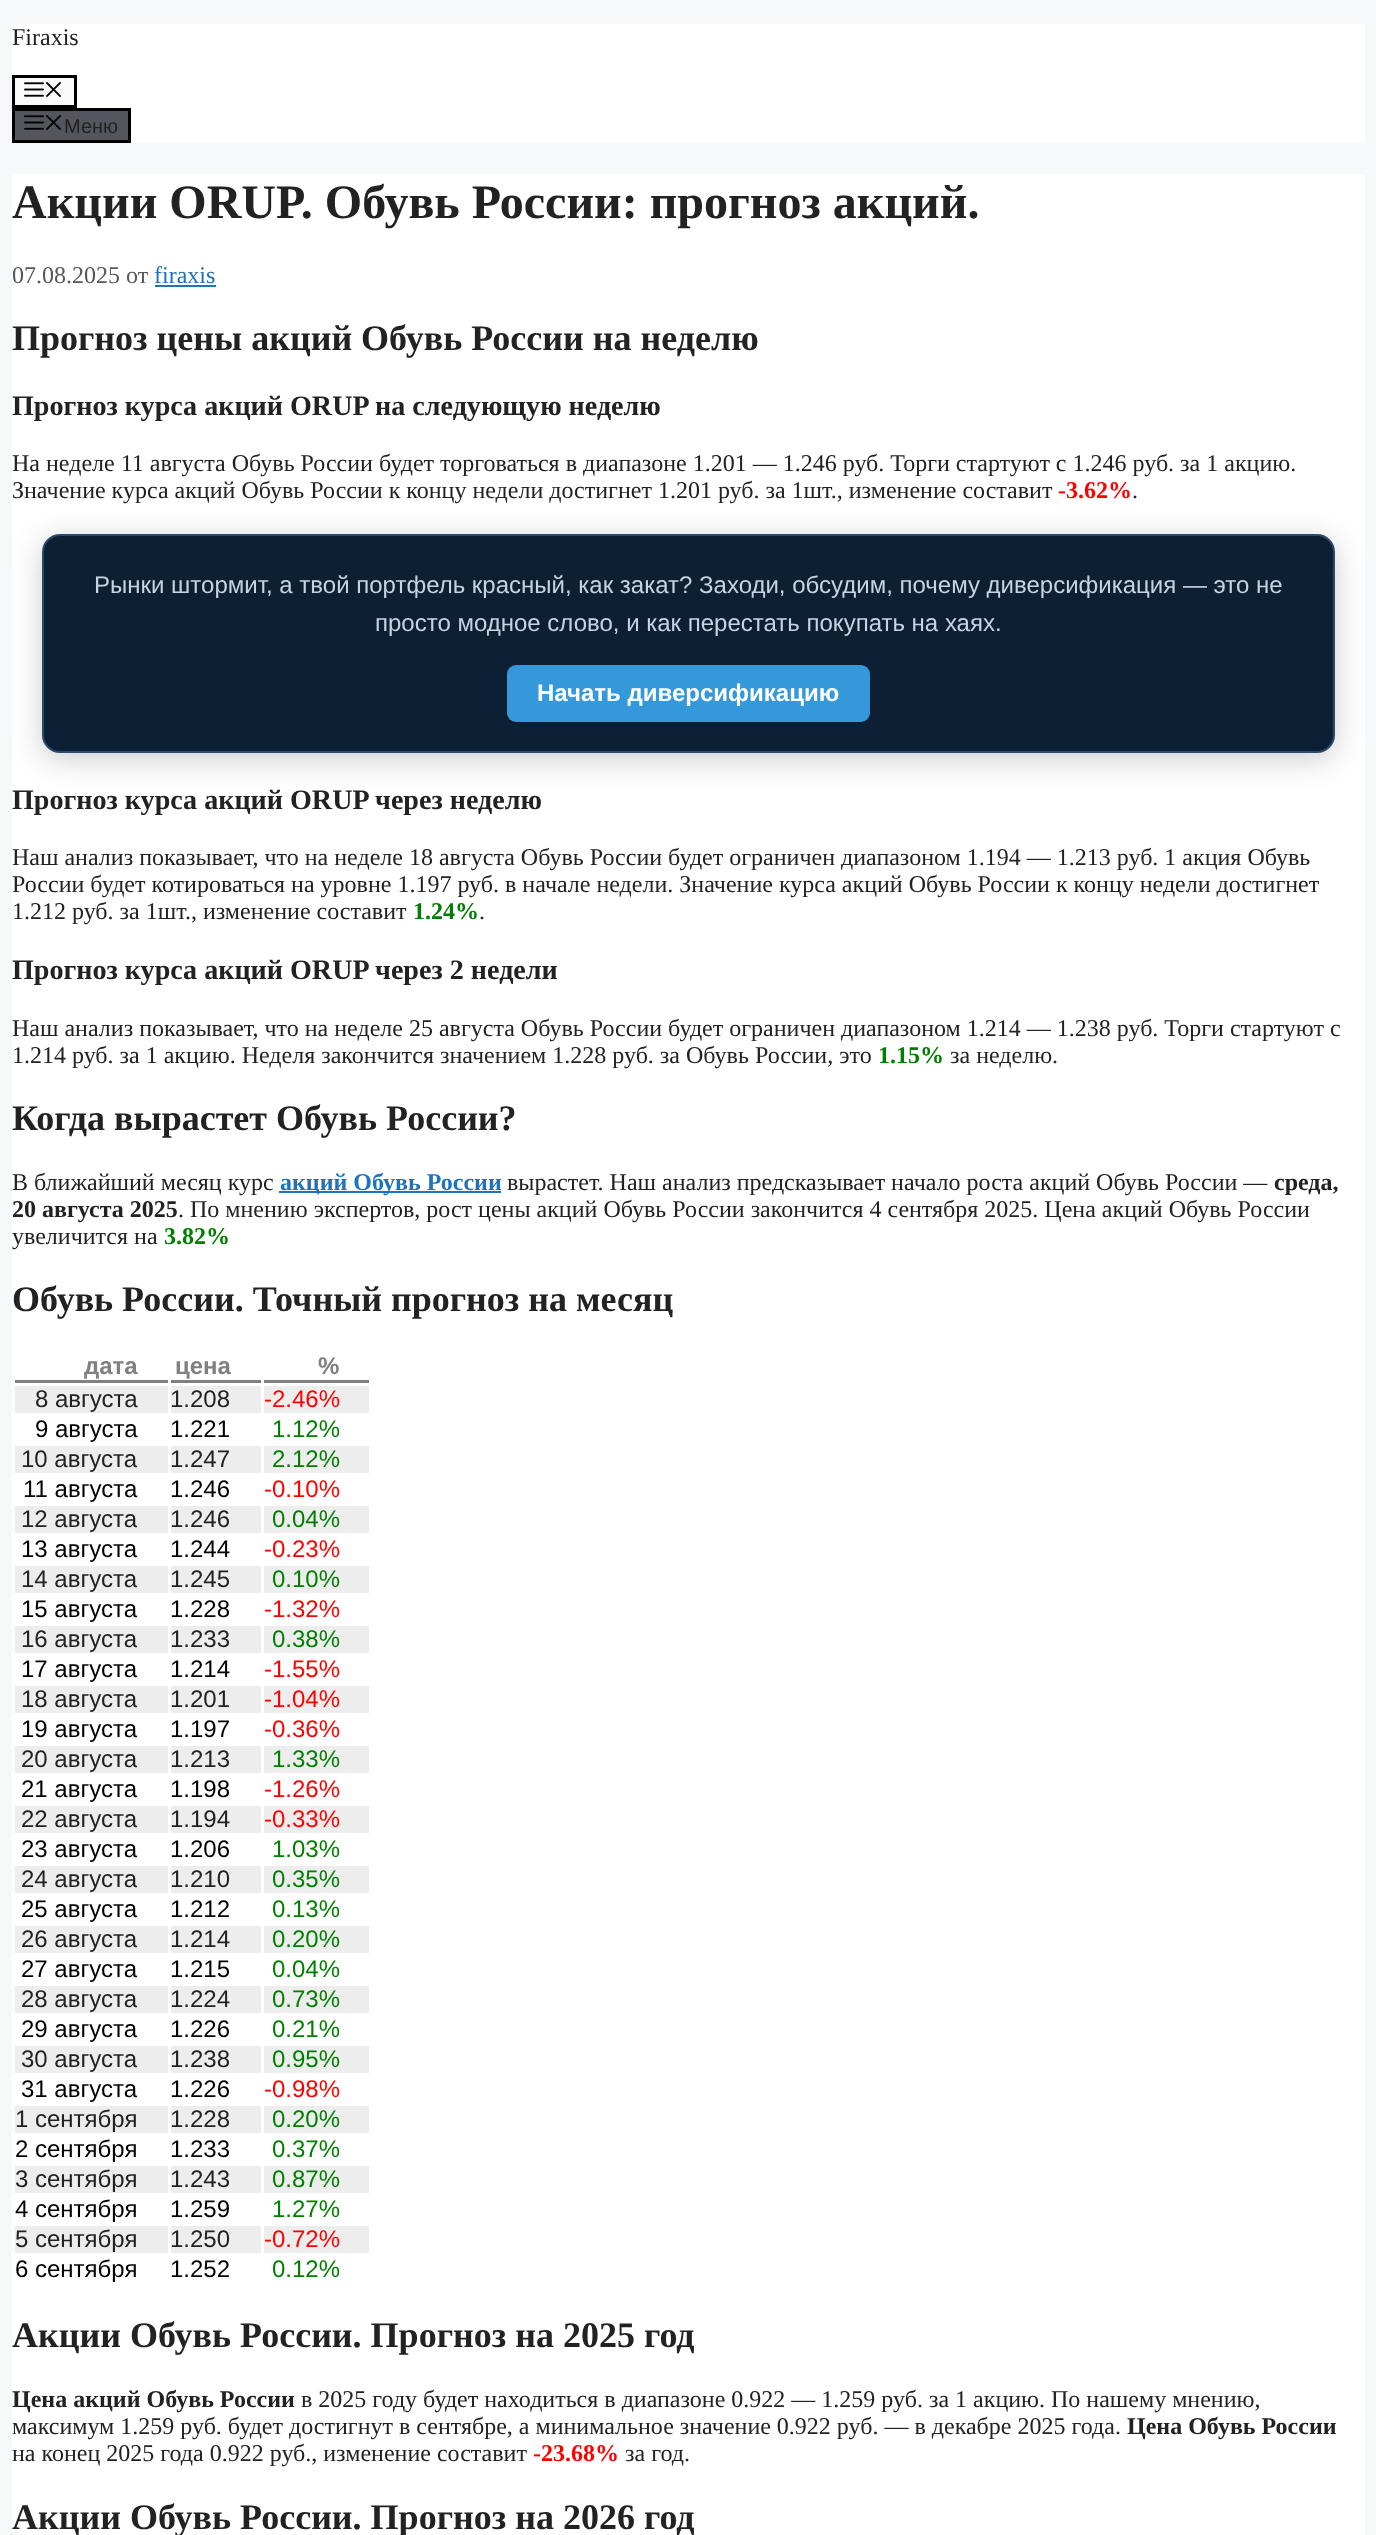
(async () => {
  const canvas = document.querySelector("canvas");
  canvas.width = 1376;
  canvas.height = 2535;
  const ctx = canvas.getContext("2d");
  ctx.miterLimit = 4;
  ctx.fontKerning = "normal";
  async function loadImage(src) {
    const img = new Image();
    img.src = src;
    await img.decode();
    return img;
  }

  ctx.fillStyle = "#f7f8f9";
  ctx.fillRect(0, 0, 1376, 2535);
  ctx.fillStyle = "#ffffff";
  ctx.fillRect(12, 24, 1353, 119);
  ctx.fillStyle = "#fafafa";
  ctx.beginPath();
  ctx.rect(13.5, 76.5, 62, 30);
  ctx.fill();
  ctx.strokeStyle = "#000000";
  ctx.lineWidth = 3;
  ctx.stroke();
  ctx.drawImage(await loadImage("img/1.png"), 24, 82, 20, 15);
  ctx.drawImage(await loadImage("img/2.png"), 46, 82, 15, 15);
  ctx.fillStyle = "#55555e";
  ctx.beginPath();
  ctx.rect(13.5, 109.5, 116, 32);
  ctx.fill();
  ctx.stroke();
  ctx.drawImage(await loadImage("img/3.png"), 24, 115, 20, 15);
  ctx.drawImage(await loadImage("img/4.png"), 46, 115, 15, 15);
  ctx.fillStyle = "#ffffff";
  ctx.fillRect(12, 174, 1353, 2361);
  ctx.fillStyle = "#1e73be";
  ctx.fillRect(155, 285, 61, 2);
  ctx.fillStyle = "rgba(0, 0, 0, 0.2)";
  ctx.filter = "blur(15px)";
  ctx.beginPath();
  ctx.roundRect(42, 540, 1293, 219, 18);
  ctx.fill();
  ctx.filter = "none";
  ctx.fillStyle = "#0d1f33";
  ctx.beginPath();
  ctx.roundRect(43, 535, 1291, 217, 17);
  ctx.fill();
  ctx.strokeStyle = "#2a4b6d";
  ctx.lineWidth = 2;
  ctx.stroke();
  ctx.fillStyle = "#3498db";
  ctx.beginPath();
  ctx.roundRect(507, 665, 363, 57, 9);
  ctx.fill();
  for (const [x, y, w, h, color] of [
    [279, 1191, 222, 2, "#1e73be"],
    [15, 1380, 153, 3, "#808080"],
    [171, 1380, 90, 3, "#808080"],
    [264, 1380, 105, 3, "#808080"],
    [15, 1386, 153, 27, "#ededed"],
    [171, 1386, 90, 27, "#ededed"],
    [264, 1386, 105, 27, "#ededed"],
    [15, 1446, 153, 27, "#ededed"],
    [171, 1446, 90, 27, "#ededed"],
    [264, 1446, 105, 27, "#ededed"],
    [15, 1506, 153, 27, "#ededed"],
    [171, 1506, 90, 27, "#ededed"],
    [264, 1506, 105, 27, "#ededed"],
    [15, 1566, 153, 27, "#ededed"],
    [171, 1566, 90, 27, "#ededed"],
    [264, 1566, 105, 27, "#ededed"],
    [15, 1626, 153, 27, "#ededed"],
    [171, 1626, 90, 27, "#ededed"],
    [264, 1626, 105, 27, "#ededed"],
    [15, 1686, 153, 27, "#ededed"],
    [171, 1686, 90, 27, "#ededed"],
    [264, 1686, 105, 27, "#ededed"],
    [15, 1746, 153, 27, "#ededed"],
    [171, 1746, 90, 27, "#ededed"],
    [264, 1746, 105, 27, "#ededed"],
    [15, 1806, 153, 27, "#ededed"],
    [171, 1806, 90, 27, "#ededed"],
    [264, 1806, 105, 27, "#ededed"],
    [15, 1866, 153, 27, "#ededed"],
    [171, 1866, 90, 27, "#ededed"],
    [264, 1866, 105, 27, "#ededed"],
    [15, 1926, 153, 27, "#ededed"],
    [171, 1926, 90, 27, "#ededed"],
    [264, 1926, 105, 27, "#ededed"],
    [15, 1986, 153, 27, "#ededed"],
    [171, 1986, 90, 27, "#ededed"],
    [264, 1986, 105, 27, "#ededed"],
    [15, 2046, 153, 27, "#ededed"],
    [171, 2046, 90, 27, "#ededed"],
    [264, 2046, 105, 27, "#ededed"],
    [15, 2106, 153, 27, "#ededed"],
    [171, 2106, 90, 27, "#ededed"],
    [264, 2106, 105, 27, "#ededed"],
    [15, 2166, 153, 27, "#ededed"],
    [171, 2166, 90, 27, "#ededed"],
    [264, 2166, 105, 27, "#ededed"],
    [15, 2226, 153, 27, "#ededed"],
    [171, 2226, 90, 27, "#ededed"],
    [264, 2226, 105, 27, "#ededed"],
  ]) {
    ctx.fillStyle = color;
    ctx.fillRect(x, y, w, h);
  }
  ctx.font = "24px Liberation Serif";
  ctx.fillStyle = "#222222";
  ctx.fillText("Firaxis", 12, 45);
  ctx.font = "20px Liberation Sans";
  ctx.fillText("Меню", 64, 133);
  ctx.font = "bold 48px Liberation Serif";
  ctx.fillText("Акции ORUP. Обувь России: прогноз акций.", 12, 218);
  ctx.font = "24px Liberation Serif";
  ctx.fillStyle = "#575760";
  ctx.fillText("07.08.2025 от", 12, 283);
  ctx.fillStyle = "#1e73be";
  ctx.fillText("firaxis", 154, 283);
  ctx.font = "bold 36px Liberation Serif";
  ctx.fillStyle = "#222222";
  ctx.fillText("Прогноз цены акций Обувь России на неделю", 12, 350);
  ctx.font = "bold 28.1px Liberation Serif";
  ctx.fillText("Прогноз курса акций ORUP на следующую неделю", 12, 415);
  ctx.font = "24px Liberation Serif";
  ctx.fillText("На неделе 11 августа Обувь России будет торговаться в диапазоне 1.201 — 1.246 руб. Торги стартуют с 1.246 руб. за 1 акцию.", 12, 471);
  ctx.fillText("Значение курса акций Обувь России к концу недели достигнет 1.201 руб. за 1шт., изменение составит", 12, 498);
  ctx.font = "bold 24px Liberation Serif";
  ctx.fillStyle = "#ff0000";
  ctx.fillText("-3.62%", 1058, 498);
  ctx.font = "24px Liberation Serif";
  ctx.fillStyle = "#222222";
  ctx.fillText(".", 1132, 498);
  ctx.font = "24px Liberation Sans";
  ctx.fillStyle = "#c5d4e4";
  ctx.fillText("Рынки штормит, а твой портфель красный, как закат? Заходи, обсудим, почему диверсификация — это не", 94, 593);
  ctx.fillText("просто модное слово, и как перестать покупать на хаях.", 375, 631);
  ctx.font = "bold 24px Liberation Sans";
  ctx.fillStyle = "#ffffff";
  ctx.fillText("Начать диверсификацию", 537, 701);
  ctx.font = "bold 28.1px Liberation Serif";
  ctx.fillStyle = "#222222";
  ctx.fillText("Прогноз курса акций ORUP через неделю", 12, 809);
  ctx.font = "24px Liberation Serif";
  for (const [text, x, y] of [
    ["Наш анализ показывает, что на неделе 18 августа Обувь России будет ограничен диапазоном 1.194 — 1.213 руб. 1 акция Обувь", 12, 865],
    ["России будет котироваться на уровне 1.197 руб. в начале недели. Значение курса акций Обувь России к концу недели достигнет", 12, 892],
    ["1.212 руб. за 1шт., изменение составит", 12, 919],
  ]) {
    ctx.fillText(text, x, y);
  }
  ctx.font = "bold 24px Liberation Serif";
  ctx.fillStyle = "#008000";
  ctx.fillText("1.24%", 413, 919);
  ctx.font = "24px Liberation Serif";
  ctx.fillStyle = "#222222";
  ctx.fillText(".", 479, 919);
  ctx.font = "bold 28.1px Liberation Serif";
  ctx.fillText("Прогноз курса акций ORUP через 2 недели", 12, 979);
  ctx.font = "24px Liberation Serif";
  ctx.fillText("Наш анализ показывает, что на неделе 25 августа Обувь России будет ограничен диапазоном 1.214 — 1.238 руб. Торги стартуют с", 12, 1036);
  ctx.fillText("1.214 руб. за 1 акцию. Неделя закончится значением 1.228 руб. за Обувь России, это", 12, 1063);
  ctx.font = "bold 24px Liberation Serif";
  ctx.fillStyle = "#008000";
  ctx.fillText("1.15%", 878, 1063);
  ctx.font = "24px Liberation Serif";
  ctx.fillStyle = "#222222";
  ctx.fillText("за неделю.", 950, 1063);
  ctx.font = "bold 36px Liberation Serif";
  ctx.fillText("Когда вырастет Обувь России?", 12, 1130);
  ctx.font = "24px Liberation Serif";
  ctx.fillText("В ближайший месяц курс", 12, 1190);
  ctx.font = "bold 24px Liberation Serif";
  ctx.fillStyle = "#1e73be";
  ctx.fillText("акций Обувь России", 280, 1190);
  ctx.font = "24px Liberation Serif";
  ctx.fillStyle = "#222222";
  ctx.fillText("вырастет. Наш анализ предсказывает начало роста акций Обувь России —", 507, 1190);
  ctx.font = "bold 24px Liberation Serif";
  ctx.fillText("среда,", 1274, 1190);
  ctx.fillText("20 августа 2025", 12, 1217);
  ctx.font = "24px Liberation Serif";
  ctx.fillText(". По мнению экспертов, рост цены акций Обувь России закончится 4 сентября 2025. Цена акций Обувь России", 178, 1217);
  ctx.fillText("увеличится на", 12, 1244);
  ctx.font = "bold 24px Liberation Serif";
  ctx.fillStyle = "#008000";
  ctx.fillText("3.82%", 164, 1244);
  ctx.font = "bold 36px Liberation Serif";
  ctx.fillStyle = "#222222";
  ctx.fillText("Обувь России. Точный прогноз на месяц", 12, 1311);
  ctx.font = "bold 24px Liberation Sans";
  ctx.fillStyle = "#808080";
  for (const [text, x, y] of [
    ["дата", 84, 1374],
    ["цена", 175, 1374],
    ["%", 318, 1374],
  ]) {
    ctx.fillText(text, x, y);
  }
  ctx.font = "24px Liberation Sans";
  ctx.fillStyle = "#222222";
  ctx.fillText("8 августа", 35, 1407);
  ctx.fillText("1.208", 170, 1407);
  ctx.fillStyle = "#ff0000";
  ctx.fillText("-2.46%", 264, 1407);
  ctx.fillStyle = "#000000";
  ctx.fillText("9 августа", 35, 1437);
  ctx.fillText("1.221", 170, 1437);
  ctx.fillStyle = "#008000";
  ctx.fillText("1.12%", 272, 1437);
  ctx.fillStyle = "#222222";
  ctx.fillText("10 августа", 21, 1467);
  ctx.fillText("1.247", 170, 1467);
  ctx.fillStyle = "#008000";
  ctx.fillText("2.12%", 272, 1467);
  ctx.fillStyle = "#000000";
  ctx.fillText("11 августа", 23, 1497);
  ctx.fillText("1.246", 170, 1497);
  ctx.fillStyle = "#ff0000";
  ctx.fillText("-0.10%", 264, 1497);
  ctx.fillStyle = "#222222";
  ctx.fillText("12 августа", 21, 1527);
  ctx.fillText("1.246", 170, 1527);
  ctx.fillStyle = "#008000";
  ctx.fillText("0.04%", 272, 1527);
  ctx.fillStyle = "#000000";
  ctx.fillText("13 августа", 21, 1557);
  ctx.fillText("1.244", 170, 1557);
  ctx.fillStyle = "#ff0000";
  ctx.fillText("-0.23%", 264, 1557);
  ctx.fillStyle = "#222222";
  ctx.fillText("14 августа", 21, 1587);
  ctx.fillText("1.245", 170, 1587);
  ctx.fillStyle = "#008000";
  ctx.fillText("0.10%", 272, 1587);
  ctx.fillStyle = "#000000";
  ctx.fillText("15 августа", 21, 1617);
  ctx.fillText("1.228", 170, 1617);
  ctx.fillStyle = "#ff0000";
  ctx.fillText("-1.32%", 264, 1617);
  ctx.fillStyle = "#222222";
  ctx.fillText("16 августа", 21, 1647);
  ctx.fillText("1.233", 170, 1647);
  ctx.fillStyle = "#008000";
  ctx.fillText("0.38%", 272, 1647);
  ctx.fillStyle = "#000000";
  ctx.fillText("17 августа", 21, 1677);
  ctx.fillText("1.214", 170, 1677);
  ctx.fillStyle = "#ff0000";
  ctx.fillText("-1.55%", 264, 1677);
  ctx.fillStyle = "#222222";
  ctx.fillText("18 августа", 21, 1707);
  ctx.fillText("1.201", 170, 1707);
  ctx.fillStyle = "#ff0000";
  ctx.fillText("-1.04%", 264, 1707);
  ctx.fillStyle = "#000000";
  ctx.fillText("19 августа", 21, 1737);
  ctx.fillText("1.197", 170, 1737);
  ctx.fillStyle = "#ff0000";
  ctx.fillText("-0.36%", 264, 1737);
  ctx.fillStyle = "#222222";
  ctx.fillText("20 августа", 21, 1767);
  ctx.fillText("1.213", 170, 1767);
  ctx.fillStyle = "#008000";
  ctx.fillText("1.33%", 272, 1767);
  ctx.fillStyle = "#000000";
  ctx.fillText("21 августа", 21, 1797);
  ctx.fillText("1.198", 170, 1797);
  ctx.fillStyle = "#ff0000";
  ctx.fillText("-1.26%", 264, 1797);
  ctx.fillStyle = "#222222";
  ctx.fillText("22 августа", 21, 1827);
  ctx.fillText("1.194", 170, 1827);
  ctx.fillStyle = "#ff0000";
  ctx.fillText("-0.33%", 264, 1827);
  ctx.fillStyle = "#000000";
  ctx.fillText("23 августа", 21, 1857);
  ctx.fillText("1.206", 170, 1857);
  ctx.fillStyle = "#008000";
  ctx.fillText("1.03%", 272, 1857);
  ctx.fillStyle = "#222222";
  ctx.fillText("24 августа", 21, 1887);
  ctx.fillText("1.210", 170, 1887);
  ctx.fillStyle = "#008000";
  ctx.fillText("0.35%", 272, 1887);
  ctx.fillStyle = "#000000";
  ctx.fillText("25 августа", 21, 1917);
  ctx.fillText("1.212", 170, 1917);
  ctx.fillStyle = "#008000";
  ctx.fillText("0.13%", 272, 1917);
  ctx.fillStyle = "#222222";
  ctx.fillText("26 августа", 21, 1947);
  ctx.fillText("1.214", 170, 1947);
  ctx.fillStyle = "#008000";
  ctx.fillText("0.20%", 272, 1947);
  ctx.fillStyle = "#000000";
  ctx.fillText("27 августа", 21, 1977);
  ctx.fillText("1.215", 170, 1977);
  ctx.fillStyle = "#008000";
  ctx.fillText("0.04%", 272, 1977);
  ctx.fillStyle = "#222222";
  ctx.fillText("28 августа", 21, 2007);
  ctx.fillText("1.224", 170, 2007);
  ctx.fillStyle = "#008000";
  ctx.fillText("0.73%", 272, 2007);
  ctx.fillStyle = "#000000";
  ctx.fillText("29 августа", 21, 2037);
  ctx.fillText("1.226", 170, 2037);
  ctx.fillStyle = "#008000";
  ctx.fillText("0.21%", 272, 2037);
  ctx.fillStyle = "#222222";
  ctx.fillText("30 августа", 21, 2067);
  ctx.fillText("1.238", 170, 2067);
  ctx.fillStyle = "#008000";
  ctx.fillText("0.95%", 272, 2067);
  ctx.fillStyle = "#000000";
  ctx.fillText("31 августа", 21, 2097);
  ctx.fillText("1.226", 170, 2097);
  ctx.fillStyle = "#ff0000";
  ctx.fillText("-0.98%", 264, 2097);
  ctx.fillStyle = "#222222";
  ctx.fillText("1 сентября", 15, 2127);
  ctx.fillText("1.228", 170, 2127);
  ctx.fillStyle = "#008000";
  ctx.fillText("0.20%", 272, 2127);
  ctx.fillStyle = "#000000";
  ctx.fillText("2 сентября", 15, 2157);
  ctx.fillText("1.233", 170, 2157);
  ctx.fillStyle = "#008000";
  ctx.fillText("0.37%", 272, 2157);
  ctx.fillStyle = "#222222";
  ctx.fillText("3 сентября", 15, 2187);
  ctx.fillText("1.243", 170, 2187);
  ctx.fillStyle = "#008000";
  ctx.fillText("0.87%", 272, 2187);
  ctx.fillStyle = "#000000";
  ctx.fillText("4 сентября", 15, 2217);
  ctx.fillText("1.259", 170, 2217);
  ctx.fillStyle = "#008000";
  ctx.fillText("1.27%", 272, 2217);
  ctx.fillStyle = "#222222";
  ctx.fillText("5 сентября", 15, 2247);
  ctx.fillText("1.250", 170, 2247);
  ctx.fillStyle = "#ff0000";
  ctx.fillText("-0.72%", 264, 2247);
  ctx.fillStyle = "#000000";
  ctx.fillText("6 сентября", 15, 2277);
  ctx.fillText("1.252", 170, 2277);
  ctx.fillStyle = "#008000";
  ctx.fillText("0.12%", 272, 2277);
  ctx.font = "bold 36px Liberation Serif";
  ctx.fillStyle = "#222222";
  ctx.fillText("Акции Обувь России. Прогноз на 2025 год", 12, 2347);
  ctx.font = "bold 24px Liberation Serif";
  ctx.fillText("Цена акций Обувь России", 12, 2407);
  ctx.font = "24px Liberation Serif";
  ctx.fillText("в 2025 году будет находиться в диапазоне 0.922 — 1.259 руб. за 1 акцию. По нашему мнению,", 301, 2407);
  ctx.fillText("максимум 1.259 руб. будет достигнут в сентябре, а минимальное значение 0.922 руб. — в декабре 2025 года.", 12, 2434);
  ctx.font = "bold 24px Liberation Serif";
  ctx.fillText("Цена Обувь России", 1127, 2434);
  ctx.font = "24px Liberation Serif";
  ctx.fillText("на конец 2025 года 0.922 руб., изменение составит", 12, 2461);
  ctx.font = "bold 24px Liberation Serif";
  ctx.fillStyle = "#ff0000";
  ctx.fillText("-23.68%", 533, 2461);
  ctx.font = "24px Liberation Serif";
  ctx.fillStyle = "#222222";
  ctx.fillText("за год.", 625, 2461);
  ctx.font = "bold 36px Liberation Serif";
  ctx.fillText("Акции Обувь России. Прогноз на 2026 год", 12, 2529);
})();
